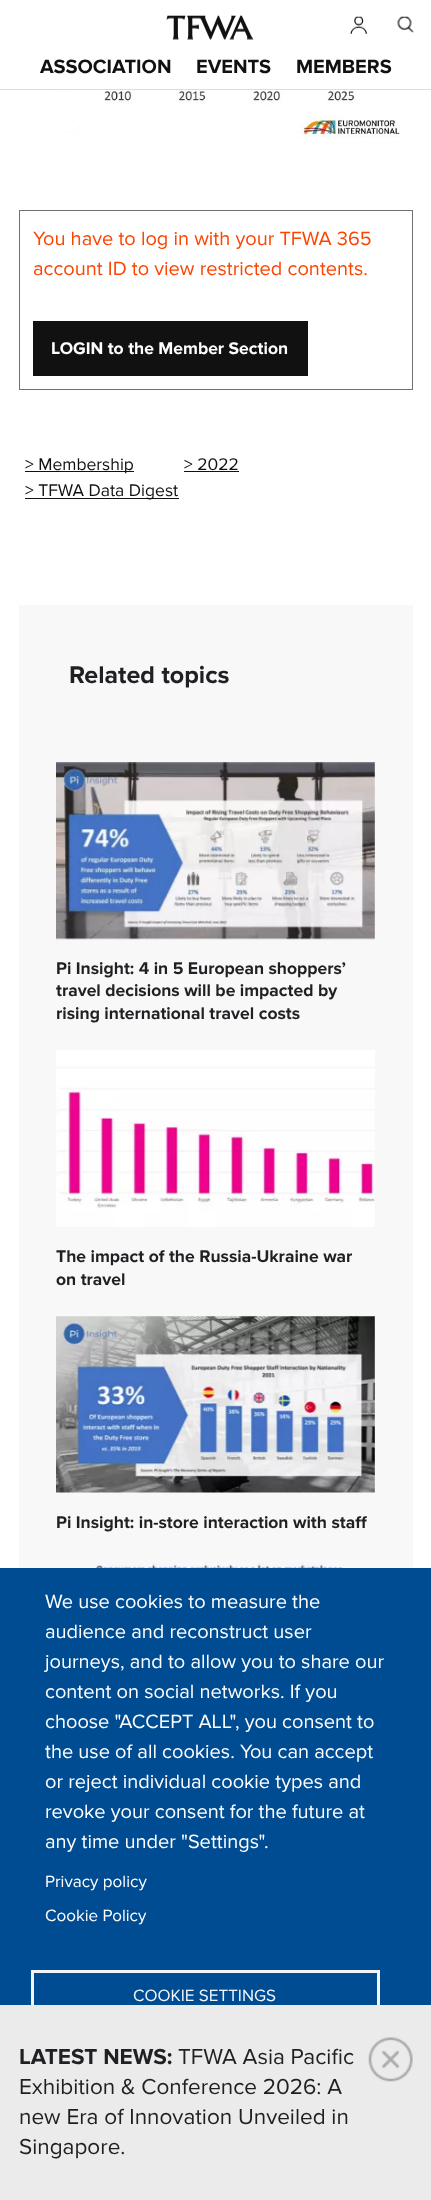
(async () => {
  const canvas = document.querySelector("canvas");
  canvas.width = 431;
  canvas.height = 2200;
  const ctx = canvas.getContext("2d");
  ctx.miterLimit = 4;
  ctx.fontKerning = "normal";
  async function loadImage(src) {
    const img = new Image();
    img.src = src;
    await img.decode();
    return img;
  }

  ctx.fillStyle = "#ffffff";
  ctx.fillRect(0, 0, 431, 2200);
  ctx.drawImage(await loadImage("img/1.png"), 166, 15, 88, 25);
  ctx.drawImage(await loadImage("img/2.png"), 350, 16, 17, 18);
  ctx.drawImage(await loadImage("img/3.png"), 397, 16, 17, 17);
  ctx.fillStyle = "#dddddd";
  ctx.fillRect(0, 89, 431, 1);
  ctx.drawImage(await loadImage("img/4.png"), 42, 90, 358, 48);
  ctx.strokeStyle = "#707070";
  ctx.strokeRect(19.5, 210.5, 393, 179);
  for (const [x, y, w, h, color] of [
    [33, 321, 275, 55, "#111111"],
    [25, 471, 109, 1, "#111111"],
    [184, 471, 55, 1, "#111111"],
    [25, 498, 154, 1, "#111111"],
    [19, 605, 394, 963, "#f8f8f8"],
  ]) {
    ctx.fillStyle = color;
    ctx.fillRect(x, y, w, h);
  }
  ctx.drawImage(await loadImage("img/5.png"), 56, 762, 319, 178);
  ctx.drawImage(await loadImage("img/6.png"), 56, 1050, 319, 177);
  ctx.drawImage(await loadImage("img/7.png"), 56, 1316, 319, 177);
  ctx.drawImage(await loadImage("img/8.png"), 96, 1562, 250, 6);
  ctx.fillStyle = "#004c93";
  ctx.fillRect(0, 1568, 431, 437);
  ctx.strokeStyle = "#f2f6fa";
  ctx.lineWidth = 3;
  ctx.strokeRect(32.5, 1971.5, 346, 50);
  ctx.fillStyle = "#ebebeb";
  ctx.fillRect(0, 2005, 431, 195);
  ctx.drawImage(await loadImage("img/9.png"), 368, 2037, 45, 45);
  ctx.font = "bold 20px Proxima Nova";
  ctx.fillStyle = "#111111";
  for (const [text, x, y] of [
    ["ASSOCIATION", 40, 73],
    ["EVENTS", 196, 73],
    ["MEMBERS", 296, 73],
  ]) {
    ctx.fillText(text, x, y);
  }
  ctx.font = "20px Proxima Nova";
  ctx.fillStyle = "#fd4400";
  ctx.fillText("You have to log in with your TFWA 365", 33, 245);
  ctx.fillText("account ID to view restricted contents.", 33, 275);
  ctx.font = "bold 17.5px Proxima Nova";
  ctx.fillStyle = "#ffffff";
  ctx.fillText("LOGIN to the Member Section", 51, 354);
  ctx.font = "17.5px Proxima Nova";
  ctx.fillStyle = "#111111";
  for (const [text, x, y] of [
    ["> Membership", 25, 470],
    ["> 2022", 184, 470],
    ["> TFWA Data Digest", 25, 496],
  ]) {
    ctx.fillText(text, x, y);
  }
  ctx.font = "bold 25px Proxima Nova";
  ctx.fillStyle = "#201f23";
  ctx.fillText("Related topics", 69, 683);
  ctx.font = "bold 17.5px Proxima Nova";
  for (const [text, x, y] of [
    ["Pi Insight: 4 in 5 European shoppers’", 56, 974],
    ["travel decisions will be impacted by", 56, 996],
    ["rising international travel costs", 56, 1019],
    ["The impact of the Russia-Ukraine war", 56, 1262],
    ["on travel", 56, 1285],
    ["Pi Insight: in-store interaction with staff", 56, 1528],
  ]) {
    ctx.fillText(text, x, y);
  }
  ctx.font = "bold 22.5px Proxima Nova";
  ctx.fillText("LATEST NEWS:", 19, 2064);
  ctx.font = "22.5px Proxima Nova";
  for (const [text, x, y] of [
    ["TFWA Asia Pacific", 178, 2064],
    ["Exhibition & Conference 2026: A", 19, 2094],
    ["new Era of Innovation Unveiled in", 19, 2124],
    ["Singapore.", 19, 2154],
  ]) {
    ctx.fillText(text, x, y);
  }
  ctx.font = "20px Proxima Nova";
  ctx.fillStyle = "#ffffff";
  for (const [text, x, y] of [
    ["We use cookies to measure the", 45, 1608],
    ["audience and reconstruct user", 45, 1638],
    ["journeys, and to allow you to share our", 45, 1668],
    ["content on social networks. If you", 45, 1698],
    ["choose \"ACCEPT ALL\", you consent to", 45, 1728],
    ["the use of all cookies. You can accept", 45, 1758],
    ["or reject individual cookie types and", 45, 1788],
    ["revoke your consent for the future at", 45, 1818],
    ["any time under \"Settings\".", 45, 1848],
  ]) {
    ctx.fillText(text, x, y);
  }
  ctx.font = "17px Proxima Nova";
  ctx.fillText("Privacy policy", 45, 1887);
  ctx.fillText("Cookie Policy", 45, 1921);
  ctx.fillStyle = "#f2f6fa";
  ctx.fillText("COOKIE SETTINGS", 133, 2001);
})();
